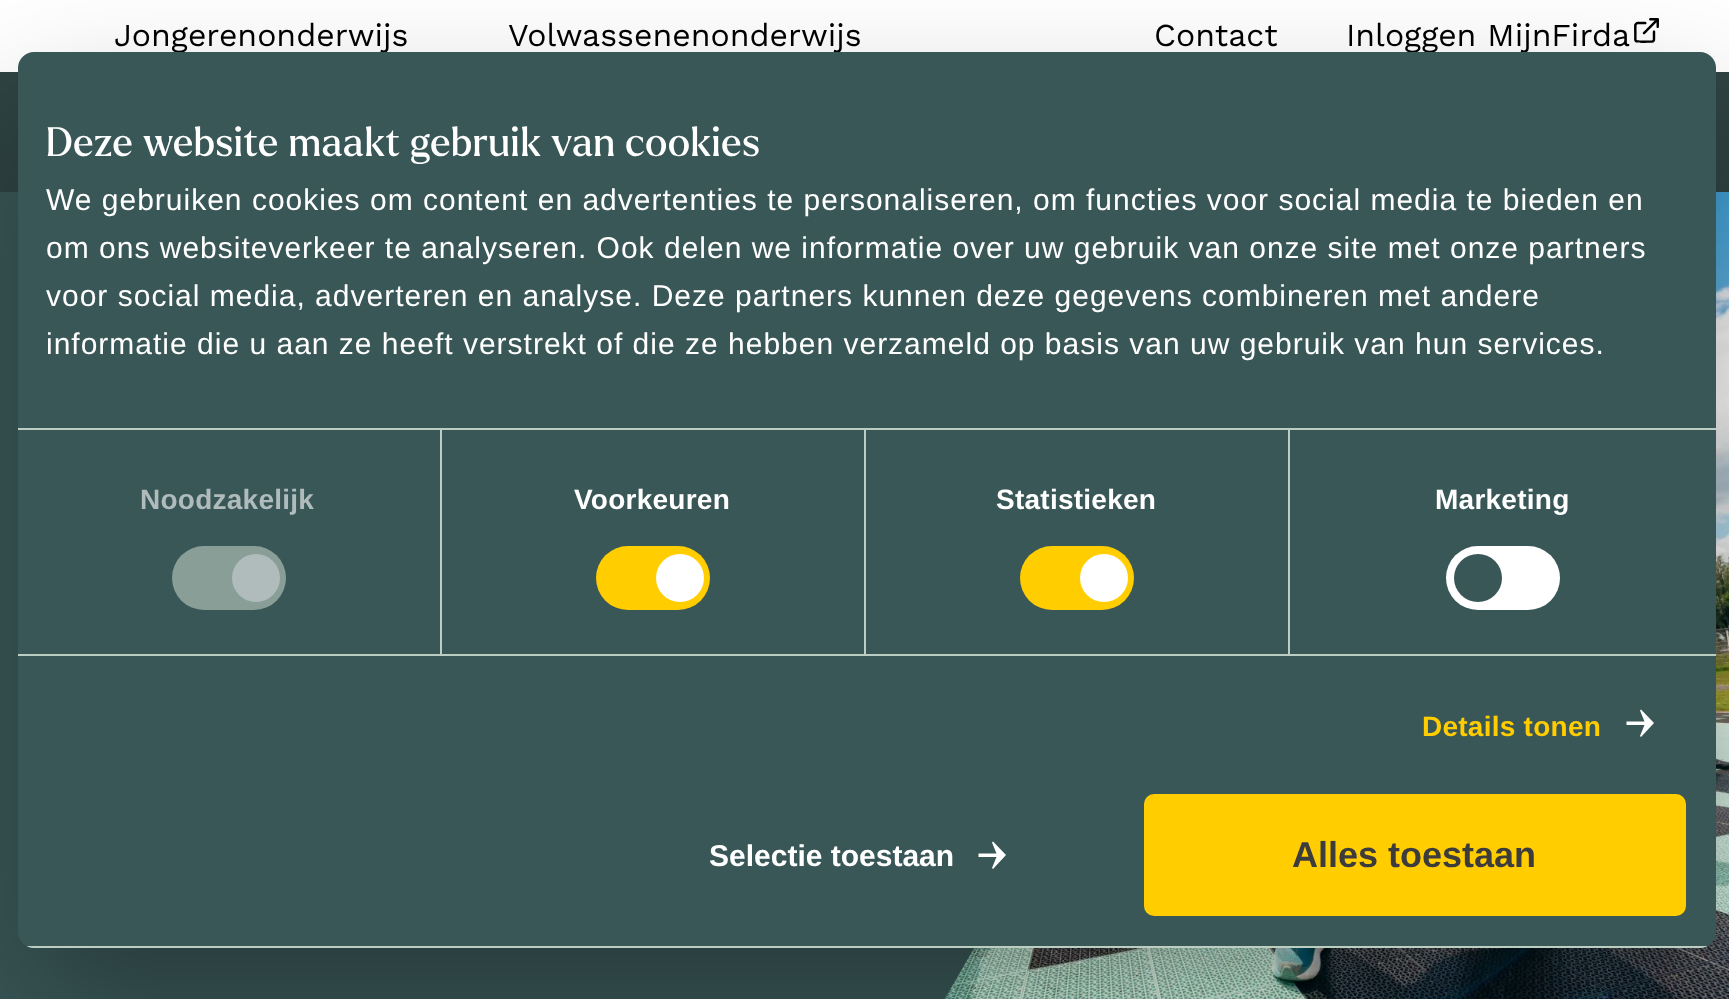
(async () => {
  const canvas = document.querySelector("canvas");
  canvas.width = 1729;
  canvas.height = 999;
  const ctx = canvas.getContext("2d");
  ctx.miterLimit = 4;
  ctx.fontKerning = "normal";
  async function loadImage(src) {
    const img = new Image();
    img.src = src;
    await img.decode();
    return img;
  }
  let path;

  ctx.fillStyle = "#ffffff";
  ctx.fillRect(0, 0, 1729, 999);
  ctx.drawImage(await loadImage("img/1.png"), 1634, 18, 25, 25);
  ctx.fillStyle = "#2f4443";
  ctx.fillRect(0, 72, 1729, 120);
  ctx.fillStyle = "#3a5757";
  ctx.fillRect(0, 192, 744, 807);
  ctx.drawImage(await loadImage("img/2.png"), 944, 192, 785, 807);
  ctx.save();
  ctx.beginPath();
  ctx.rect(744, 192, 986, 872);
  ctx.clip();
  path = new Path2D("M744 190L238 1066H906L1412 190Z");
  ctx.fill(path);
  ctx.restore();
  ctx.fillStyle = "rgba(0, 0, 0, 0.3)";
  ctx.filter = "blur(68px)";
  ctx.beginPath();
  ctx.roundRect(18, 116, 1698, 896, 16);
  ctx.fill();
  ctx.filter = "none";
  ctx.font = "32px Work Sans";
  ctx.fillStyle = "#000000";
  for (const [text, x, y] of [
    ["Jongerenonderwijs", 114, 46],
    ["Volwassenenonderwijs", 508, 46],
    ["Contact", 1154, 46],
    ["Inloggen MijnFirda", 1346, 46],
  ]) {
    ctx.fillText(text, x, y);
  }
  ctx.fillStyle = "#3a5757";
  ctx.beginPath();
  ctx.roundRect(18, 52, 1698, 896, 16);
  ctx.fill();
  ctx.fillStyle = "#bccec2";
  ctx.fillRect(18, 428, 1698, 2);
  ctx.letterSpacing = "0.5px";
  ctx.font = "40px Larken";
  ctx.fillStyle = "#ffffff";
  ctx.fillText("Deze website maakt gebruik van cookies", 46, 156);
  ctx.letterSpacing = "1px";
  ctx.font = "30px Liberation Sans";
  for (const [text, x, y] of [
    ["We gebruiken cookies om content en advertenties te personaliseren, om functies voor social media te bieden en", 46, 210],
    ["om ons websiteverkeer te analyseren. Ook delen we informatie over uw gebruik van onze site met onze partners", 46, 258],
    ["voor social media, adverteren en analyse. Deze partners kunnen deze gegevens combineren met andere", 46, 306],
    ["informatie die u aan ze heeft verstrekt of die ze hebben verzameld op basis van uw gebruik van hun services.", 46, 354],
  ]) {
    ctx.fillText(text, x, y);
  }
  ctx.fillStyle = "#bccec2";
  ctx.fillRect(18, 654, 1698, 2);
  ctx.fillRect(440, 430, 2, 224);
  ctx.letterSpacing = "0.25px";
  ctx.font = "bold 28px Liberation Sans";
  ctx.fillStyle = "#b0bcbc";
  ctx.fillText("Noodzakelijk", 140, 509);
  ctx.fillStyle = "#889e97";
  ctx.beginPath();
  ctx.roundRect(172, 546, 114, 64, 32);
  ctx.fill();
  ctx.fillStyle = "#b0bcbc";
  ctx.beginPath();
  ctx.arc(256, 578, 24, 0, Math.PI * 2);
  ctx.fill();
  ctx.fillStyle = "#bccec2";
  ctx.fillRect(864, 430, 2, 224);
  ctx.fillStyle = "#ffffff";
  ctx.fillText("Voorkeuren", 574, 509);
  ctx.fillStyle = "#ffcd00";
  ctx.beginPath();
  ctx.roundRect(596, 546, 114, 64, 32);
  ctx.fill();
  ctx.fillStyle = "#ffffff";
  ctx.beginPath();
  ctx.arc(680, 578, 24, 0, Math.PI * 2);
  ctx.fill();
  ctx.fillStyle = "#bccec2";
  ctx.fillRect(1288, 430, 2, 224);
  ctx.fillStyle = "#ffffff";
  ctx.fillText("Statistieken", 996, 509);
  ctx.fillStyle = "#ffcd00";
  ctx.beginPath();
  ctx.roundRect(1020, 546, 114, 64, 32);
  ctx.fill();
  ctx.fillStyle = "#ffffff";
  ctx.beginPath();
  ctx.arc(1104, 578, 24, 0, Math.PI * 2);
  ctx.fill();
  ctx.fillText("Marketing", 1435, 509);
  ctx.beginPath();
  ctx.roundRect(1446, 546, 114, 64, 32);
  ctx.fill();
  ctx.fillStyle = "#3a5757";
  ctx.beginPath();
  ctx.arc(1478, 578, 24, 0, Math.PI * 2);
  ctx.fill();
  ctx.fillStyle = "#ffcd00";
  ctx.fillText("Details tonen", 1422, 736);
  ctx.fillStyle = "#ffffff";
  path = new Path2D("M1641 709.5L1640 710.5L1644.5 721.5H1626.5V725H1644.5L1640 736L1641 737L1654 723Z");
  ctx.fill(path);
  ctx.save();
  ctx.beginPath();
  ctx.roundRect(18, 52, 1698, 896, 16);
  ctx.clip();
  ctx.fillStyle = "#bccec2";
  ctx.fillRect(18, 946, 1698, 2);
  ctx.restore();
  ctx.letterSpacing = "0px";
  ctx.font = "bold 30px Liberation Sans";
  ctx.fillText("Selectie toestaan", 709, 866);
  path = new Path2D("M993 841.5L992 842.5L996.5 853.5H978.5V857H996.5L992 868L993 869L1006 855Z");
  ctx.fill(path);
  ctx.fillStyle = "#ffcd00";
  ctx.beginPath();
  ctx.roundRect(1146, 796, 538, 118, 8);
  ctx.fill();
  ctx.strokeStyle = "#ffcd00";
  ctx.lineWidth = 4;
  ctx.stroke();
  ctx.font = "bold 36px Liberation Sans";
  ctx.fillStyle = "#3c3c3c";
  ctx.fillText("Alles toestaan", 1292, 867);
})();
